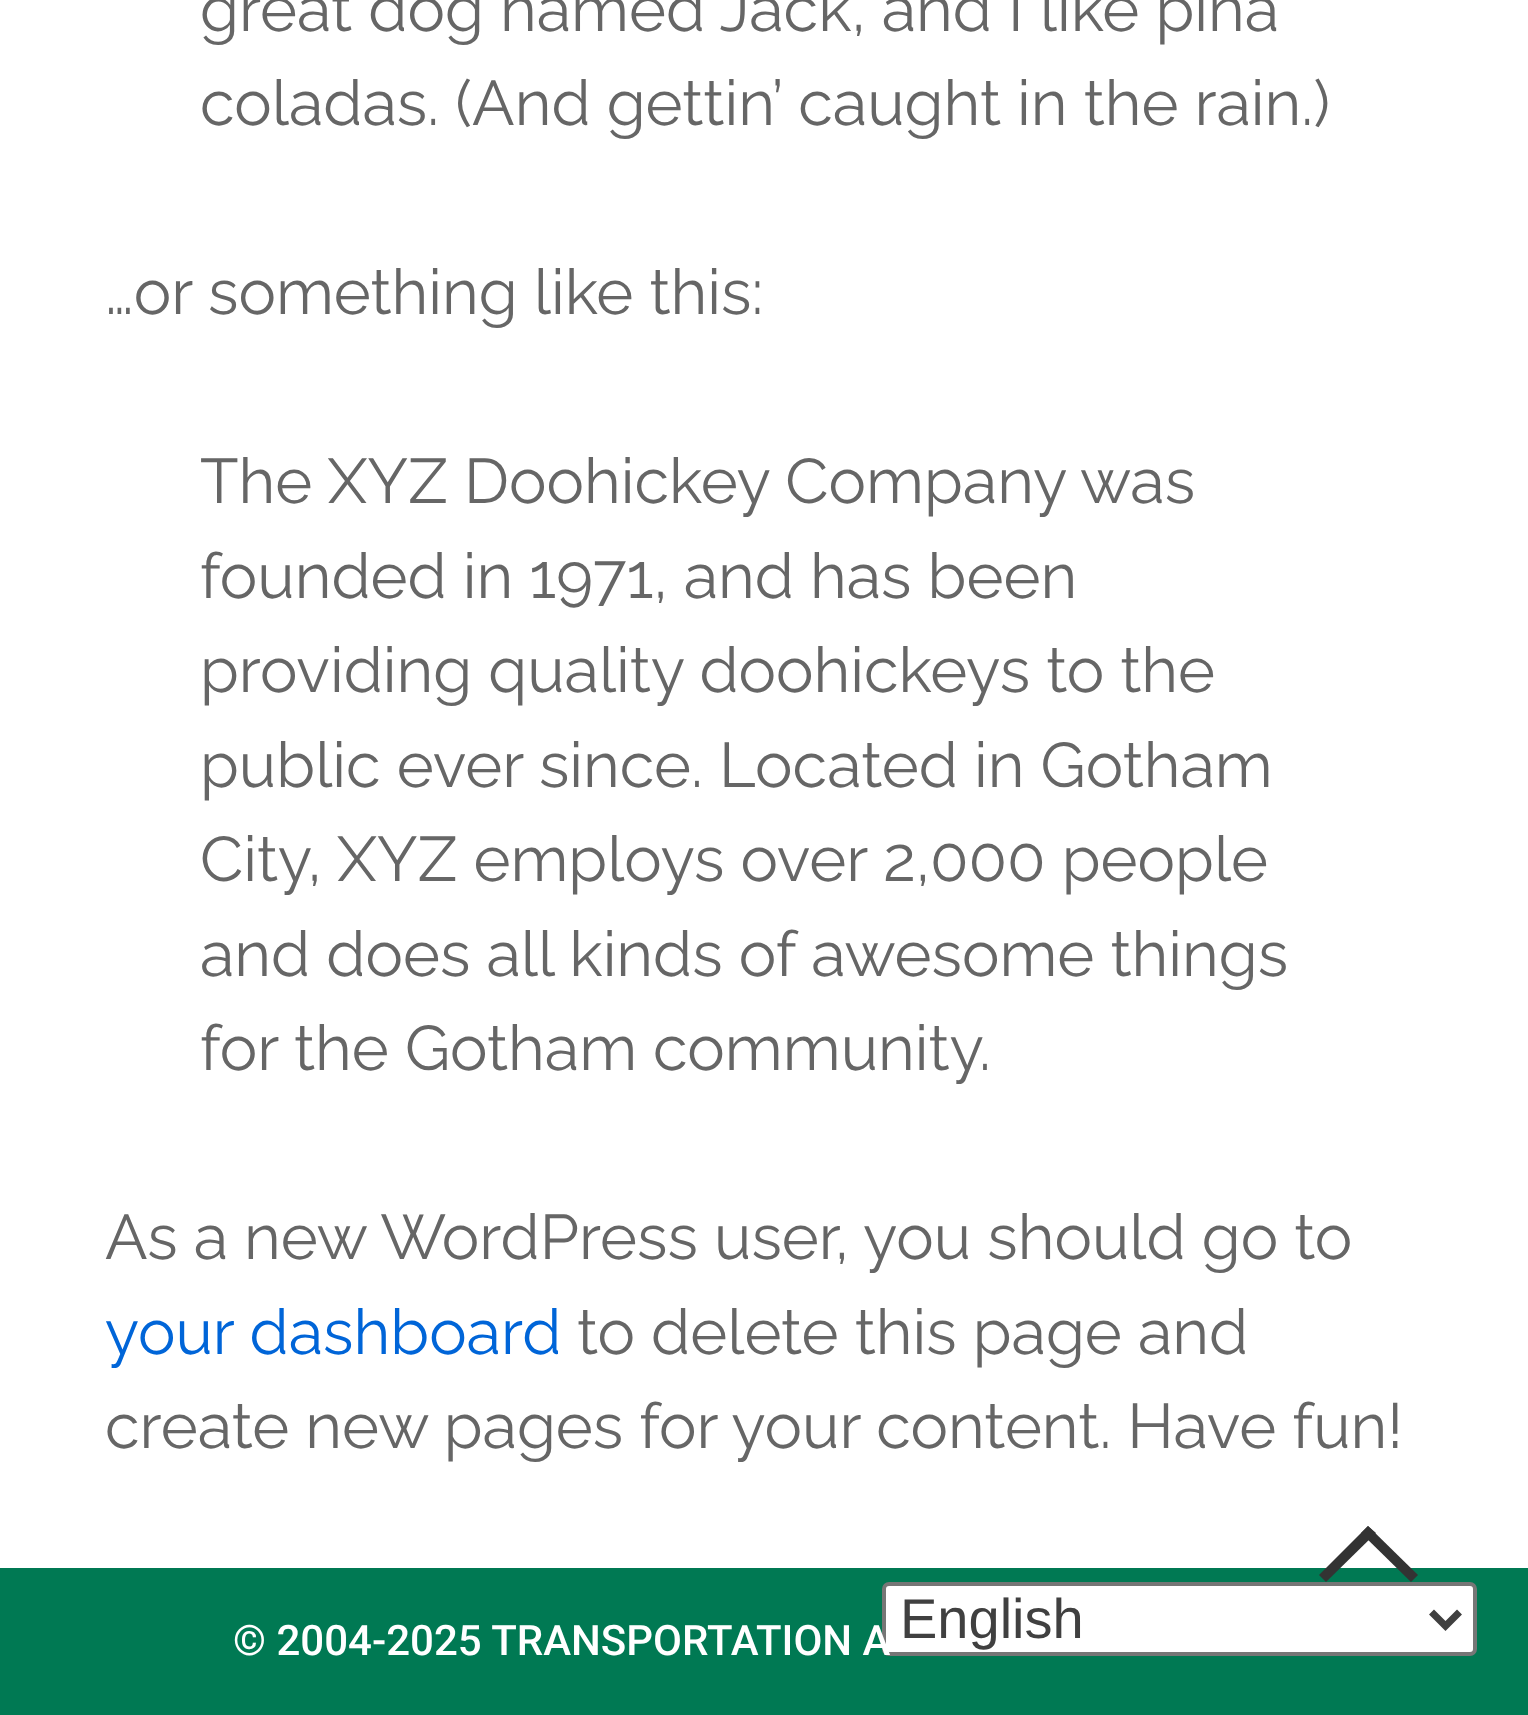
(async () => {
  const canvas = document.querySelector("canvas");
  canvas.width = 1528;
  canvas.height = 1715;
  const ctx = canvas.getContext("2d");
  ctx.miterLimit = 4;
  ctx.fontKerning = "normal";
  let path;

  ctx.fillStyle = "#ffffff";
  ctx.fillRect(0, 0, 1528, 1715);
  ctx.fillStyle = "#007953";
  ctx.fillRect(0, 1568, 1528, 147);
  ctx.fillStyle = "#333333";
  path = new Path2D("M1368 1526L1418 1575L1411 1582L1361 1533Z");
  ctx.fill(path);
  path = new Path2D("M1368 1526L1376 1533L1326 1582L1319 1575Z");
  ctx.fill(path);
  ctx.fillStyle = "#ffffff";
  ctx.beginPath();
  ctx.roundRect(884, 1584, 591, 70, 5);
  ctx.fill();
  ctx.strokeStyle = "#767676";
  ctx.lineWidth = 4;
  ctx.stroke();
  path = new Path2D("M1431.5 1612L1445.5 1626L1459.5 1612");
  ctx.strokeStyle = "#404040";
  ctx.lineWidth = 7;
  ctx.stroke(path);
  ctx.font = "63px Raleway";
  ctx.fillStyle = "#666666";
  for (const [text, x, y] of [
    ["great dog named Jack, and I like piña", 200, 31],
    ["coladas. (And gettin’ caught in the rain.)", 200, 125],
    ["…or something like this:", 105, 314],
    ["The XYZ Doohickey Company was", 200, 503],
    ["founded in 1971, and has been", 200, 598],
    ["providing quality doohickeys to the", 200, 692],
    ["public ever since. Located in Gotham", 200, 787],
    ["City, XYZ employs over 2,000 people", 200, 881],
    ["and does all kinds of awesome things", 200, 976],
    ["for the Gotham community.", 200, 1070],
    ["As a new WordPress user, you should go to", 105, 1259],
  ]) {
    ctx.fillText(text, x, y);
  }
  ctx.fillStyle = "#0065d8";
  ctx.fillText("your dashboard", 105, 1354);
  ctx.fillStyle = "#666666";
  ctx.fillText("to delete this page and", 577, 1354);
  ctx.fillText("create new pages for your content. Have fun!", 105, 1448);
  ctx.font = "500 42px Roboto";
  ctx.fillStyle = "#ffffff";
  ctx.fillText("© 2004-2025 TRANSPORTATION A", 233, 1655);
  ctx.font = "56px Liberation Sans";
  ctx.fillStyle = "#404040";
  ctx.fillText("English", 900, 1638);
})();
